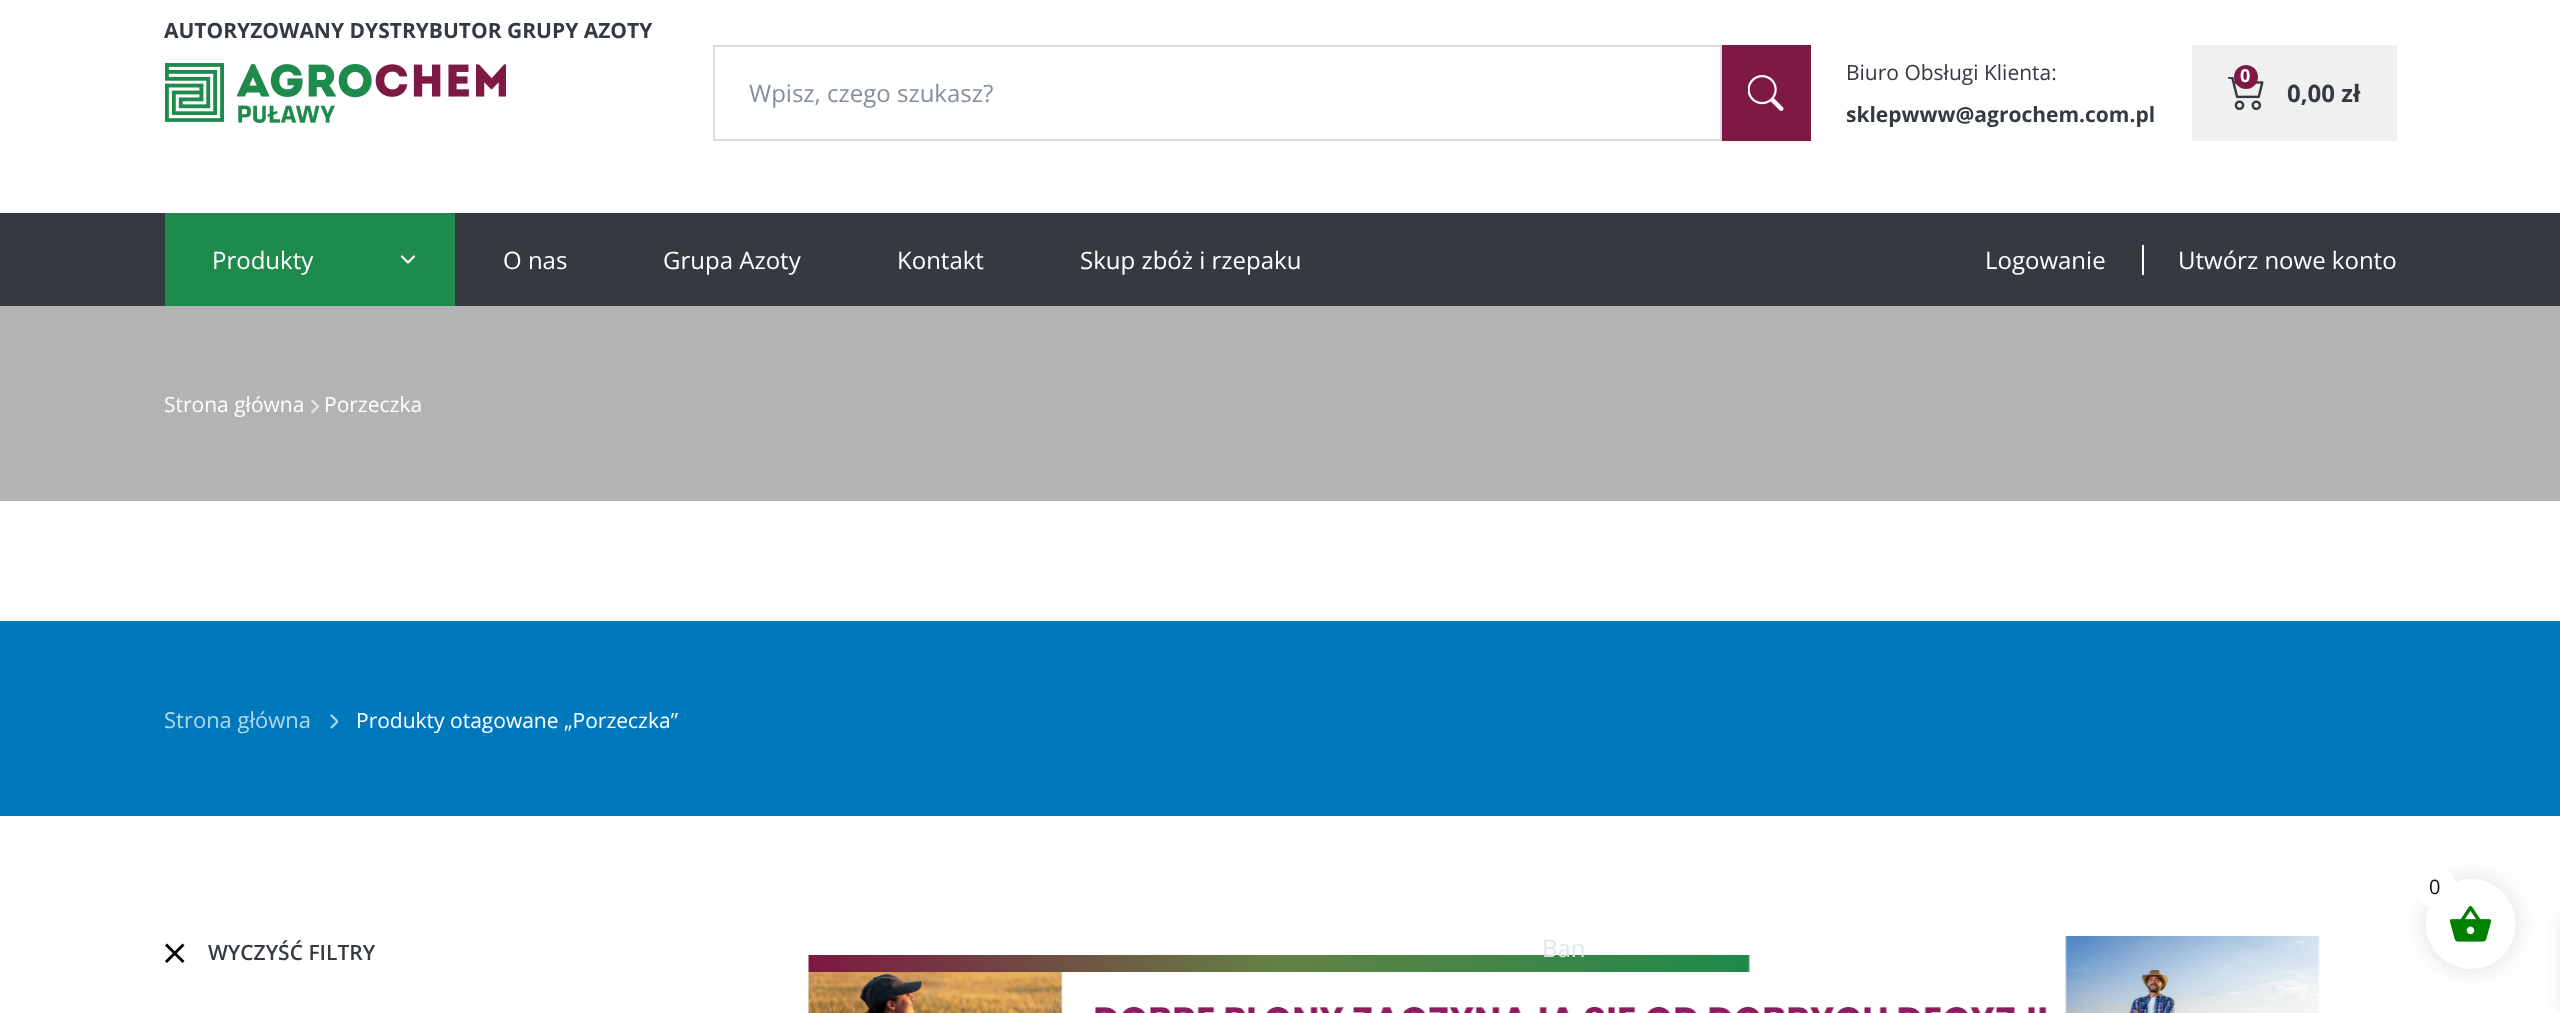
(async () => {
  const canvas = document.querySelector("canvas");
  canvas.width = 2560;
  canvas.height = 1013;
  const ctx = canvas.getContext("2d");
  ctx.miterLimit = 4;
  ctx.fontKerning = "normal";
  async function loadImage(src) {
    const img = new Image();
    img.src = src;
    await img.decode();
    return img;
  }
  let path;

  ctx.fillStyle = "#ffffff";
  ctx.fillRect(0, 0, 2560, 1013);
  ctx.drawImage(await loadImage("img/1.png"), 165, 63, 341, 60);
  ctx.strokeStyle = "#dcdcdc";
  ctx.lineWidth = 2;
  ctx.strokeRect(714, 46, 1007, 94);
  ctx.fillStyle = "#7d1942";
  ctx.fillRect(1722, 45, 89, 96);
  ctx.drawImage(await loadImage("img/2.png"), 1748, 75, 36, 36);
  ctx.fillStyle = "#f0f0f0";
  ctx.fillRect(2192, 45, 205, 96);
  ctx.drawImage(await loadImage("img/3.png"), 2228, 77, 36, 33);
  ctx.fillStyle = "#7d1942";
  ctx.beginPath();
  ctx.arc(2246, 77, 12, 0, Math.PI * 2);
  ctx.fill();
  ctx.fillStyle = "#343a40";
  ctx.fillRect(0, 213, 2560, 93);
  ctx.fillStyle = "#1e8a4c";
  ctx.fillRect(165, 213, 290, 93);
  path = new Path2D("M402 256.5L408 262.5L414 256.5");
  ctx.strokeStyle = "#ffffff";
  ctx.lineWidth = 2.2;
  ctx.lineCap = "round";
  ctx.lineJoin = "round";
  ctx.stroke(path);
  ctx.fillStyle = "#ffffff";
  ctx.fillRect(2142, 245, 2, 30);
  ctx.fillStyle = "#b3b3b3";
  ctx.fillRect(0, 306, 2560, 195);
  path = new Path2D("M312 412.5L318 406.5L312 400.5");
  ctx.strokeStyle = "#e8e8e8";
  ctx.stroke(path);
  ctx.fillStyle = "#0079bc";
  ctx.fillRect(0, 621, 2560, 195);
  ctx.save();
  ctx.beginPath();
  ctx.rect(330, 714, 8, 15);
  ctx.clip();
  path = new Path2D("M331.5 727.5L337.5 721.5L331.5 715.5");
  ctx.strokeStyle = "#b3d7eb";
  ctx.stroke(path);
  ctx.restore();
  path = new Path2D("M166 944.5L183.5 962M183.5 944.5L166 962");
  ctx.strokeStyle = "#000000";
  ctx.lineWidth = 2.9;
  ctx.lineCap = "butt";
  ctx.lineJoin = "miter";
  ctx.stroke(path);
  ctx.drawImage(await loadImage("img/4.png"), 808, 936, 1512, 77);
  ctx.fillStyle = "rgba(0, 0, 0, 0.1)";
  ctx.filter = "blur(11px)";
  ctx.beginPath();
  ctx.roundRect(2423, 876, 96, 96, 48);
  ctx.fill();
  ctx.filter = "none";
  ctx.fillStyle = "#ffffff";
  ctx.beginPath();
  ctx.arc(2471, 924, 45, 0, Math.PI * 2);
  ctx.fill();
  ctx.drawImage(await loadImage("img/5.png"), 2449, 906, 43, 36);
  ctx.beginPath();
  ctx.arc(2435, 887, 21, 0, Math.PI * 2);
  ctx.fill();
  ctx.fillStyle = "rgba(0, 0, 0, 0.1)";
  ctx.filter = "blur(7.5px)";
  ctx.beginPath();
  ctx.rect(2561, 914, 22, 99);
  ctx.fill();
  ctx.filter = "none";
  ctx.font = "bold 21px Open Sans";
  ctx.fillStyle = "#343a40";
  ctx.fillText("AUTORYZOWANY DYSTRYBUTOR GRUPY AZOTY", 164, 38);
  ctx.font = "24px Open Sans";
  ctx.fillStyle = "#868e96";
  ctx.fillText("Wpisz, czego szukasz?", 749, 102);
  ctx.font = "21px Open Sans";
  ctx.fillStyle = "#343a40";
  ctx.fillText("Biuro Obsługi Klienta:", 1846, 80);
  ctx.font = "bold 21px Open Sans";
  ctx.fillText("sklepwww@agrochem.com.pl", 1846, 122);
  ctx.font = "bold 18px Open Sans";
  ctx.fillStyle = "#ffffff";
  ctx.fillText("0", 2240, 82);
  ctx.font = "bold 24px Open Sans";
  ctx.fillStyle = "#343a40";
  ctx.fillText("0,00 zł", 2287, 102);
  ctx.font = "24px Open Sans";
  ctx.fillStyle = "#ffffff";
  for (const [text, x, y] of [
    ["Produkty", 212, 269],
    ["O nas", 503, 269],
    ["Grupa Azoty", 663, 269],
    ["Kontakt", 897, 269],
    ["Skup zbóż i rzepaku", 1080, 269],
    ["Logowanie", 1985, 269],
    ["Utwórz nowe konto", 2178, 269],
  ]) {
    ctx.fillText(text, x, y);
  }
  ctx.font = "21px Open Sans";
  ctx.fillText("Strona główna", 164, 412);
  ctx.fillText("Porzeczka", 324, 412);
  ctx.font = "22px Open Sans";
  ctx.fillStyle = "#b3d7eb";
  ctx.fillText("Strona główna", 164, 728);
  ctx.font = "21px Open Sans";
  ctx.fillStyle = "#ffffff";
  ctx.fillText("Produkty otagowane „Porzeczka”", 356, 728);
  ctx.font = "600 21px Open Sans";
  ctx.fillStyle = "#343a40";
  ctx.fillText("WYCZYŚĆ FILTRY", 208, 960);
  ctx.font = "24px Open Sans";
  ctx.fillStyle = "#ddeae0";
  ctx.fillText("Ban", 1542, 957);
  ctx.font = "20px Open Sans";
  ctx.fillStyle = "#0a0a0a";
  ctx.fillText("0", 2429, 894);
})();
